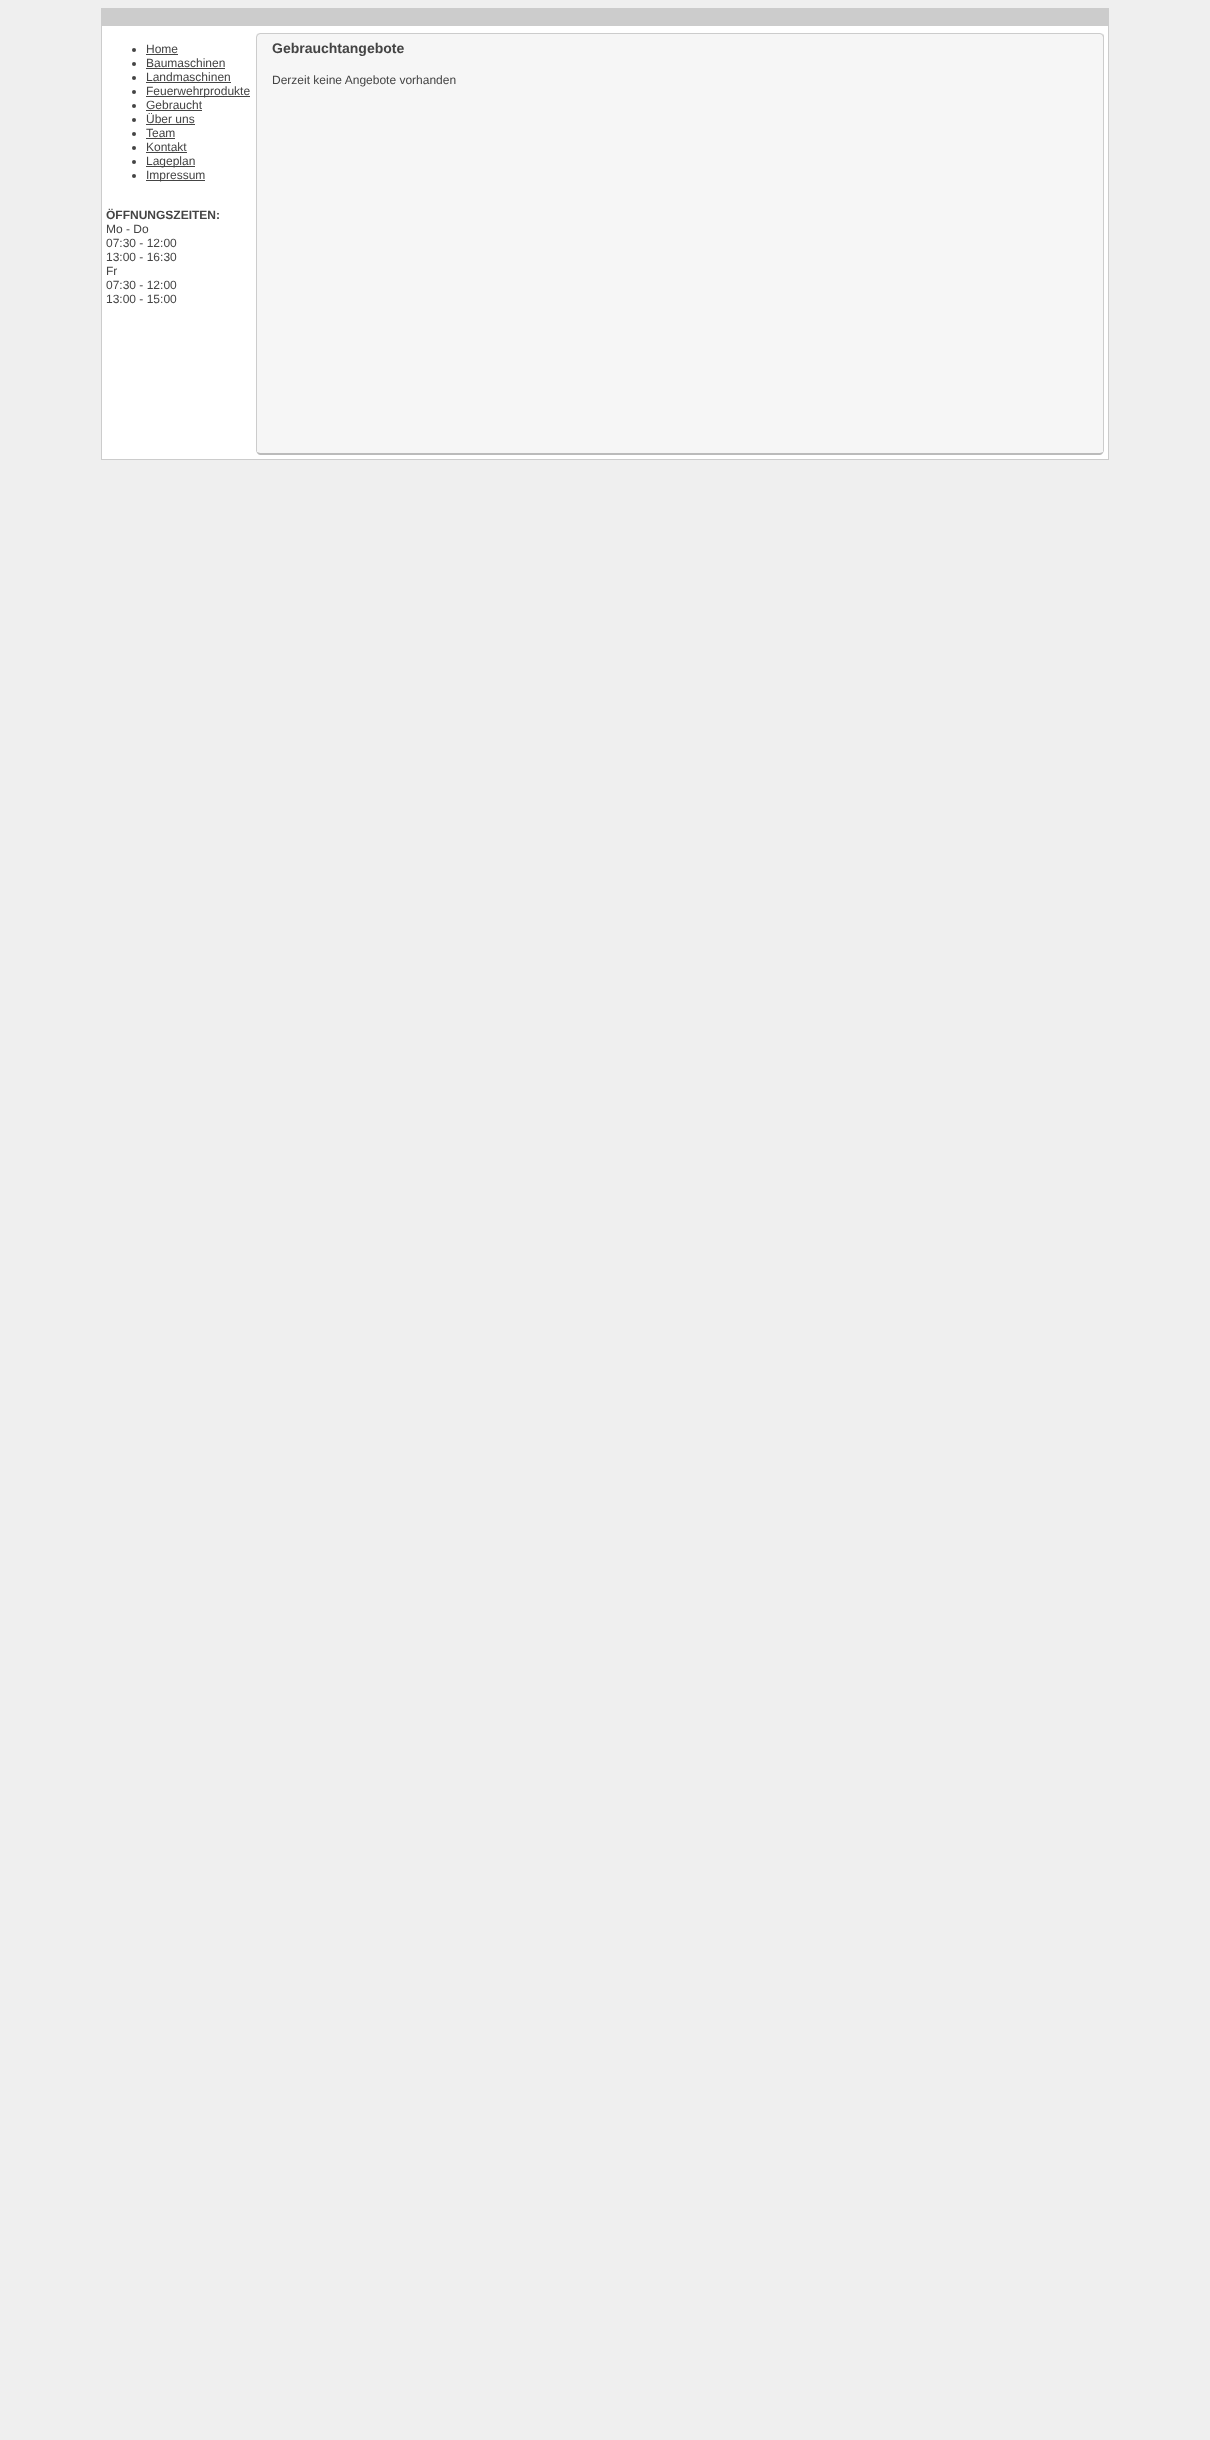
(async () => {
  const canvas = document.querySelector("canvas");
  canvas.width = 1210;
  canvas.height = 2440;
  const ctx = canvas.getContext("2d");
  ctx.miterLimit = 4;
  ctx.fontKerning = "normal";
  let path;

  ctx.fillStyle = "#efefef";
  ctx.fillRect(0, 0, 1210, 2440);
  ctx.fillStyle = "#cccccc";
  ctx.fillRect(101, 8, 1008, 452);
  ctx.fillStyle = "#ffffff";
  ctx.fillRect(102, 26, 1006, 433);
  ctx.fillStyle = "#444444";
  ctx.beginPath();
  ctx.arc(134, 50, 2, 0, Math.PI * 2);
  ctx.fill();
  ctx.fillRect(146, 54, 32, 1);
  ctx.beginPath();
  ctx.arc(134, 64, 2, 0, Math.PI * 2);
  ctx.fill();
  ctx.fillRect(146, 68, 79, 1);
  ctx.beginPath();
  ctx.arc(134, 78, 2, 0, Math.PI * 2);
  ctx.fill();
  ctx.fillRect(146, 82, 85, 1);
  ctx.beginPath();
  ctx.arc(134, 92, 2, 0, Math.PI * 2);
  ctx.fill();
  ctx.fillRect(146, 96, 104, 1);
  ctx.beginPath();
  ctx.arc(134, 106, 2, 0, Math.PI * 2);
  ctx.fill();
  ctx.fillRect(146, 110, 56, 1);
  ctx.beginPath();
  ctx.arc(134, 120, 2, 0, Math.PI * 2);
  ctx.fill();
  ctx.fillRect(146, 124, 49, 1);
  ctx.beginPath();
  ctx.arc(134, 134, 2, 0, Math.PI * 2);
  ctx.fill();
  ctx.fillRect(146, 138, 29, 1);
  ctx.beginPath();
  ctx.arc(134, 148, 2, 0, Math.PI * 2);
  ctx.fill();
  ctx.fillRect(146, 152, 41, 1);
  ctx.beginPath();
  ctx.arc(134, 162, 2, 0, Math.PI * 2);
  ctx.fill();
  ctx.fillRect(146, 166, 49, 1);
  ctx.beginPath();
  ctx.arc(134, 176, 2, 0, Math.PI * 2);
  ctx.fill();
  ctx.fillRect(146, 180, 59, 1);
  ctx.fillStyle = "#f6f6f6";
  path = new Path2D("M260 34H1100C1102 34 1103 35 1103 37V451C1103 452 1102 453 1100 453H260C258 453 257 452 257 451V37C257 35 258 34 260 34Z");
  ctx.fill(path);
  ctx.fillStyle = "#cccccc";
  path = new Path2D("M260 33L257 34L258 35L260 34H1100L1102 35L1103 34L1100 33Z");
  ctx.fill(path);
  path = new Path2D("M1104 451V37C1104 36 1104 35 1103 34L1102 35L1103 37V451V452V453Z");
  ctx.fill(path);
  ctx.fillStyle = "#bbbbbb";
  path = new Path2D("M260 455H1100C1101 455 1102 454 1103 453V452L1100 453H260L257 452V453C258 454 259 455 260 455Z");
  ctx.fill(path);
  ctx.fillStyle = "#cccccc";
  path = new Path2D("M256 37V451L257 453V452V451V37L258 35L257 34Z");
  ctx.fill(path);
  ctx.font = "12px Liberation Sans";
  ctx.fillStyle = "#444444";
  for (const [text, x, y] of [
    ["Home", 146, 53],
    ["Baumaschinen", 146, 67],
    ["Landmaschinen", 146, 81],
    ["Feuerwehrprodukte", 146, 95],
    ["Gebraucht", 146, 109],
    ["Über uns", 146, 123],
    ["Team", 146, 137],
    ["Kontakt", 146, 151],
    ["Lageplan", 146, 165],
    ["Impressum", 146, 179],
  ]) {
    ctx.fillText(text, x, y);
  }
  ctx.font = "bold 12px Liberation Sans";
  ctx.fillText("ÖFFNUNGSZEITEN:", 106, 219);
  ctx.font = "12px Liberation Sans";
  for (const [text, x, y] of [
    ["Mo - Do", 106, 233],
    ["07:30 - 12:00", 106, 247],
    ["13:00 - 16:30", 106, 261],
    ["Fr", 106, 275],
    ["07:30 - 12:00", 106, 289],
    ["13:00 - 15:00", 106, 303],
  ]) {
    ctx.fillText(text, x, y);
  }
  ctx.font = "bold 14px Liberation Sans";
  ctx.fillText("Gebrauchtangebote", 272, 53);
  ctx.font = "12px Liberation Sans";
  ctx.fillText("Derzeit keine Angebote vorhanden", 272, 84);
})();
